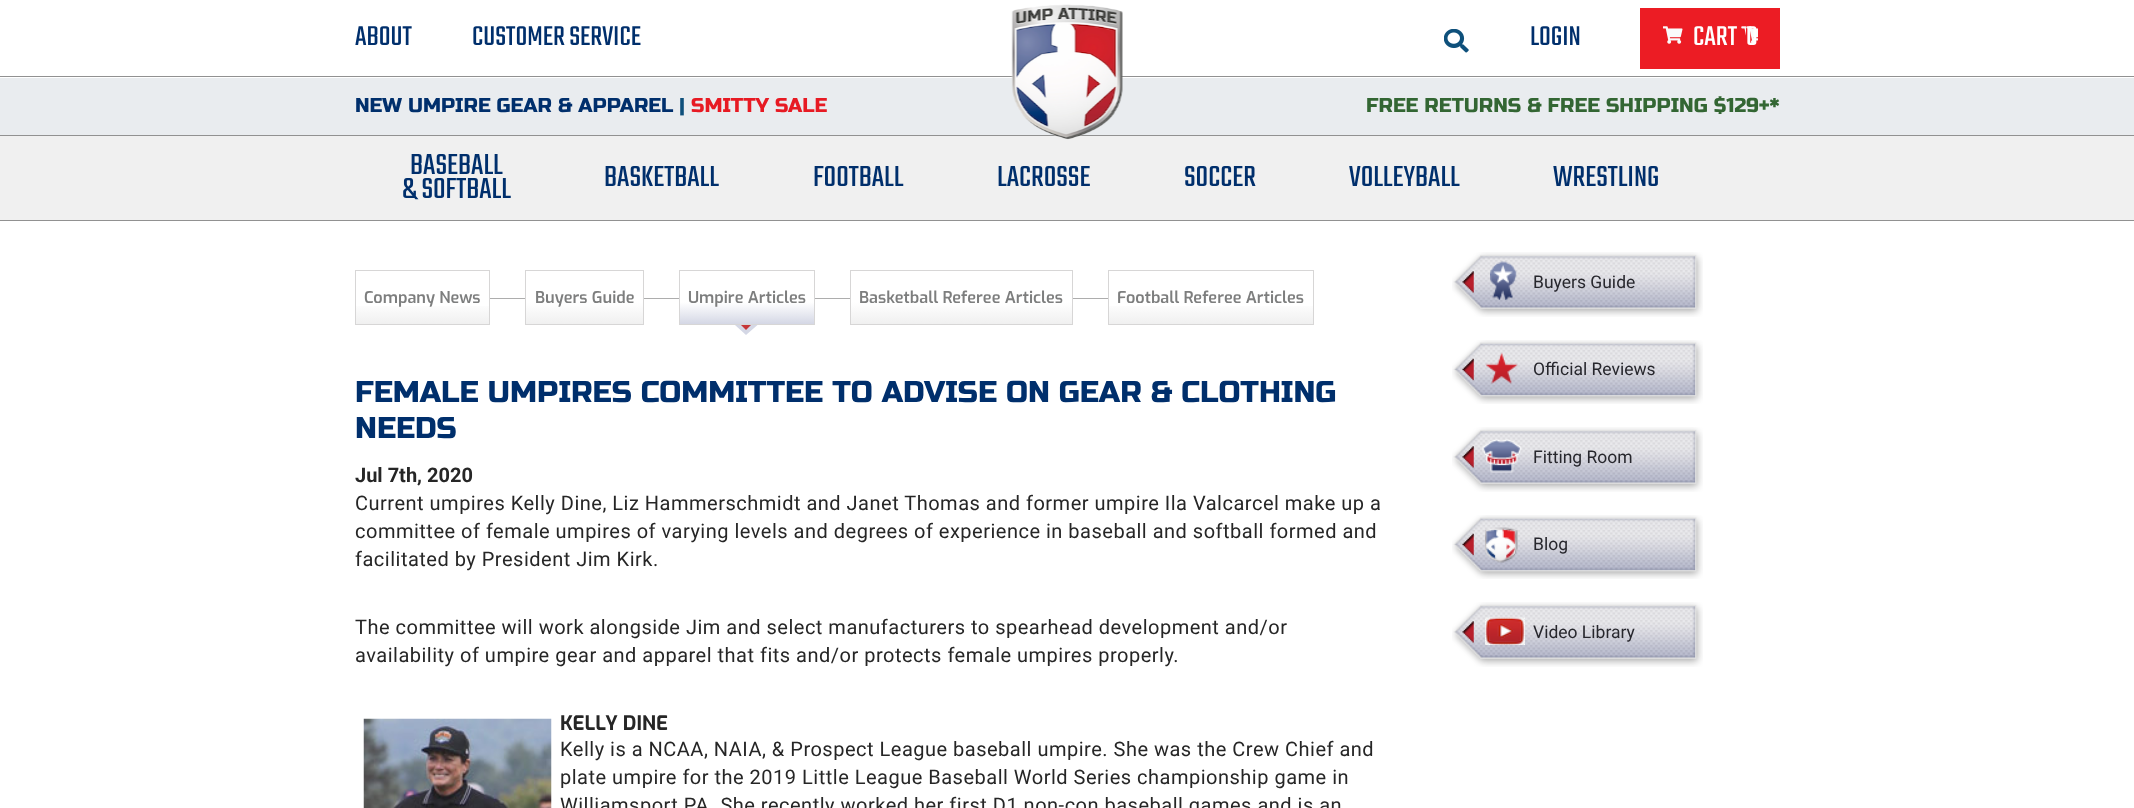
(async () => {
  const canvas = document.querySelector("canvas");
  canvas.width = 2134;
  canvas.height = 808;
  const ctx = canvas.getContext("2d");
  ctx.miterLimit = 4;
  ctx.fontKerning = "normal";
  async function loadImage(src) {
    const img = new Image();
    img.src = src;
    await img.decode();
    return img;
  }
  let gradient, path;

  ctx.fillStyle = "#ffffff";
  ctx.fillRect(0, 0, 2134, 808);
  for (const [x, y, w, h, color] of [
    [0, 78, 2134, 57, "#e9ecef"],
    [0, 76, 2134, 1, "#919191"],
    [0, 135, 2134, 1, "#919191"],
    [0, 136, 2134, 84, "#f0f0f0"],
  ]) {
    ctx.fillStyle = color;
    ctx.fillRect(x, y, w, h);
  }
  ctx.drawImage(await loadImage("img/1.png"), 1011, 4, 112, 136);
  ctx.drawImage(await loadImage("img/2.png"), 1444, 29, 25, 24);
  ctx.fillStyle = "#ec1c24";
  ctx.fillRect(1640, 8, 140, 61);
  ctx.drawImage(await loadImage("img/3.png"), 1663, 26, 95, 18);
  ctx.fillStyle = "#919191";
  ctx.fillRect(0, 220, 2134, 1);
  gradient = ctx.createLinearGradient(423, 271, 423, 324);
  gradient.addColorStop(0.59, "#ffffff");
  gradient.addColorStop(1, "#f0f0f0");
  ctx.fillStyle = gradient;
  ctx.fillRect(356, 306, 133, 18);
  ctx.strokeStyle = "#d7d6d6";
  ctx.strokeRect(355.5, 270.5, 134, 54);
  ctx.fillStyle = "#adadad";
  ctx.fillRect(490, 298, 618, 1);
  gradient = ctx.createLinearGradient(584, 271, 584, 324);
  gradient.addColorStop(0.59, "#ffffff");
  gradient.addColorStop(1, "#f0f0f0");
  ctx.fillStyle = gradient;
  ctx.fillRect(526, 298, 117, 26);
  ctx.strokeRect(525.5, 270.5, 118, 54);
  gradient = ctx.createLinearGradient(747, 271, 747, 324);
  gradient.addColorStop(0.59, "#ffffff");
  gradient.addColorStop(1, "#d4d7e5");
  ctx.fillStyle = gradient;
  ctx.fillRect(680, 298, 134, 26);
  ctx.strokeRect(679.5, 270.5, 135, 54);
  ctx.fillStyle = "#d4d7e5";
  path = new Path2D("M735 325H757.5L746 335Z");
  ctx.fill(path);
  ctx.fillStyle = "#c63638";
  path = new Path2D("M741 325H751L746 330Z");
  ctx.fill(path);
  gradient = ctx.createLinearGradient(961, 271, 961, 324);
  gradient.addColorStop(0.59, "#ffffff");
  gradient.addColorStop(1, "#f0f0f0");
  ctx.fillStyle = gradient;
  ctx.fillRect(851, 298, 221, 26);
  ctx.strokeRect(850.5, 270.5, 222, 54);
  gradient = ctx.createLinearGradient(1211, 271, 1211, 324);
  gradient.addColorStop(0.59, "#ffffff");
  gradient.addColorStop(1, "#f0f0f0");
  ctx.fillStyle = gradient;
  ctx.fillRect(1109, 306, 204, 18);
  ctx.strokeRect(1108.5, 270.5, 205, 54);
  ctx.drawImage(await loadImage("img/4.png"), 363, 718, 189, 90);
  ctx.drawImage(await loadImage("img/5.png"), 1452, 252, 251, 65);
  ctx.drawImage(await loadImage("img/6.png"), 1490, 261, 27, 39);
  ctx.drawImage(await loadImage("img/7.png"), 1452, 340, 251, 64);
  ctx.drawImage(await loadImage("img/8.png"), 1485, 352, 33, 32);
  ctx.drawImage(await loadImage("img/5.png"), 1452, 427, 251, 65);
  ctx.drawImage(await loadImage("img/9.png"), 1482, 439, 40, 34);
  ctx.drawImage(await loadImage("img/10.png"), 1452, 515, 251, 64);
  ctx.drawImage(await loadImage("img/11.png"), 1485, 527, 33, 36);
  ctx.drawImage(await loadImage("img/5.png"), 1452, 602, 251, 65);
  ctx.drawImage(await loadImage("img/12.png"), 1485, 617, 40, 28);
  ctx.font = "300 30px Teko";
  ctx.fillStyle = "#002f6c";
  for (const [text, x, y] of [
    ["ABOUT", 355, 45],
    ["CUSTOMER SERVICE", 472, 45],
    ["LOGIN", 1530, 45],
  ]) {
    ctx.fillText(text, x, y);
  }
  ctx.fillStyle = "#ffffff";
  ctx.fillText("CART", 1693, 45);
  ctx.fillText("0", 1746, 45);
  ctx.font = "20px Russo One";
  ctx.fillStyle = "#002f6c";
  ctx.fillText("NEW UMPIRE GEAR & APPAREL", 355, 112);
  ctx.fillStyle = "#0e507b";
  ctx.fillText("|", 679, 112);
  ctx.fillStyle = "#e71a23";
  ctx.fillText("SMITTY SALE", 691, 112);
  ctx.fillStyle = "#336633";
  ctx.fillText("FREE RETURNS & FREE SHIPPING $129+*", 1366, 112);
  ctx.font = "300 32px Teko";
  ctx.fillStyle = "#002f6c";
  for (const [text, x, y] of [
    ["BASEBALL", 410, 174],
    ["& SOFTBALL", 402, 198],
    ["BASKETBALL", 604, 186],
    ["FOOTBALL", 813, 186],
    ["LACROSSE", 997, 186],
    ["SOCCER", 1184, 186],
    ["VOLLEYBALL", 1349, 186],
    ["WRESTLING", 1553, 186],
  ]) {
    ctx.fillText(text, x, y);
  }
  ctx.font = "600 16.25px Exo";
  ctx.fillStyle = "#7d7e7e";
  for (const [text, x, y] of [
    ["Company News", 364, 303],
    ["Buyers Guide", 535, 303],
    ["Umpire Articles", 688, 303],
    ["Basketball Referee Articles", 859, 303],
    ["Football Referee Articles", 1117, 303],
  ]) {
    ctx.fillText(text, x, y);
  }
  ctx.font = "30px Russo One";
  ctx.fillStyle = "#002f6c";
  ctx.fillText("FEMALE UMPIRES COMMITTEE TO ADVISE ON GEAR & CLOTHING", 355, 402);
  ctx.fillText("NEEDS", 355, 438);
  ctx.font = "bold 20px Roboto";
  ctx.fillStyle = "#262626";
  ctx.fillText("Jul 7th, 2020", 355, 482);
  ctx.letterSpacing = "0.5px";
  ctx.font = "20px Roboto";
  for (const [text, x, y] of [
    ["Current umpires Kelly Dine, Liz Hammerschmidt and Janet Thomas and former umpire Ila Valcarcel make up a", 355, 510],
    ["committee of female umpires of varying levels and degrees of experience in baseball and softball formed and", 355, 538],
    ["facilitated by President Jim Kirk.", 355, 566],
    ["The committee will work alongside Jim and select manufacturers to spearhead development and/or", 355, 634],
    ["availability of umpire gear and apparel that fits and/or protects female umpires properly.", 355, 662],
  ]) {
    ctx.fillText(text, x, y);
  }
  ctx.letterSpacing = "0px";
  ctx.font = "bold 20px Exo";
  ctx.fillText("KELLY DINE", 560, 730);
  ctx.letterSpacing = "0.5px";
  ctx.font = "20px Roboto";
  for (const [text, x, y] of [
    ["Kelly is a NCAA, NAIA, & Prospect League baseball umpire. She was the Crew Chief and", 560, 756],
    ["plate umpire for the 2019 Little League Baseball World Series championship game in", 560, 784],
    ["Williamsport PA. She recently worked her first D1 non-con baseball games and is an", 560, 812],
  ]) {
    ctx.fillText(text, x, y);
  }
  ctx.letterSpacing = "0px";
  ctx.font = "17.5px Roboto";
  ctx.fillStyle = "#27272d";
  for (const [text, x, y] of [
    ["Buyers Guide", 1533, 288],
    ["Official Reviews", 1533, 375],
    ["Fitting Room", 1533, 463],
    ["Blog", 1533, 550],
    ["Video Library", 1533, 638],
  ]) {
    ctx.fillText(text, x, y);
  }
})();
